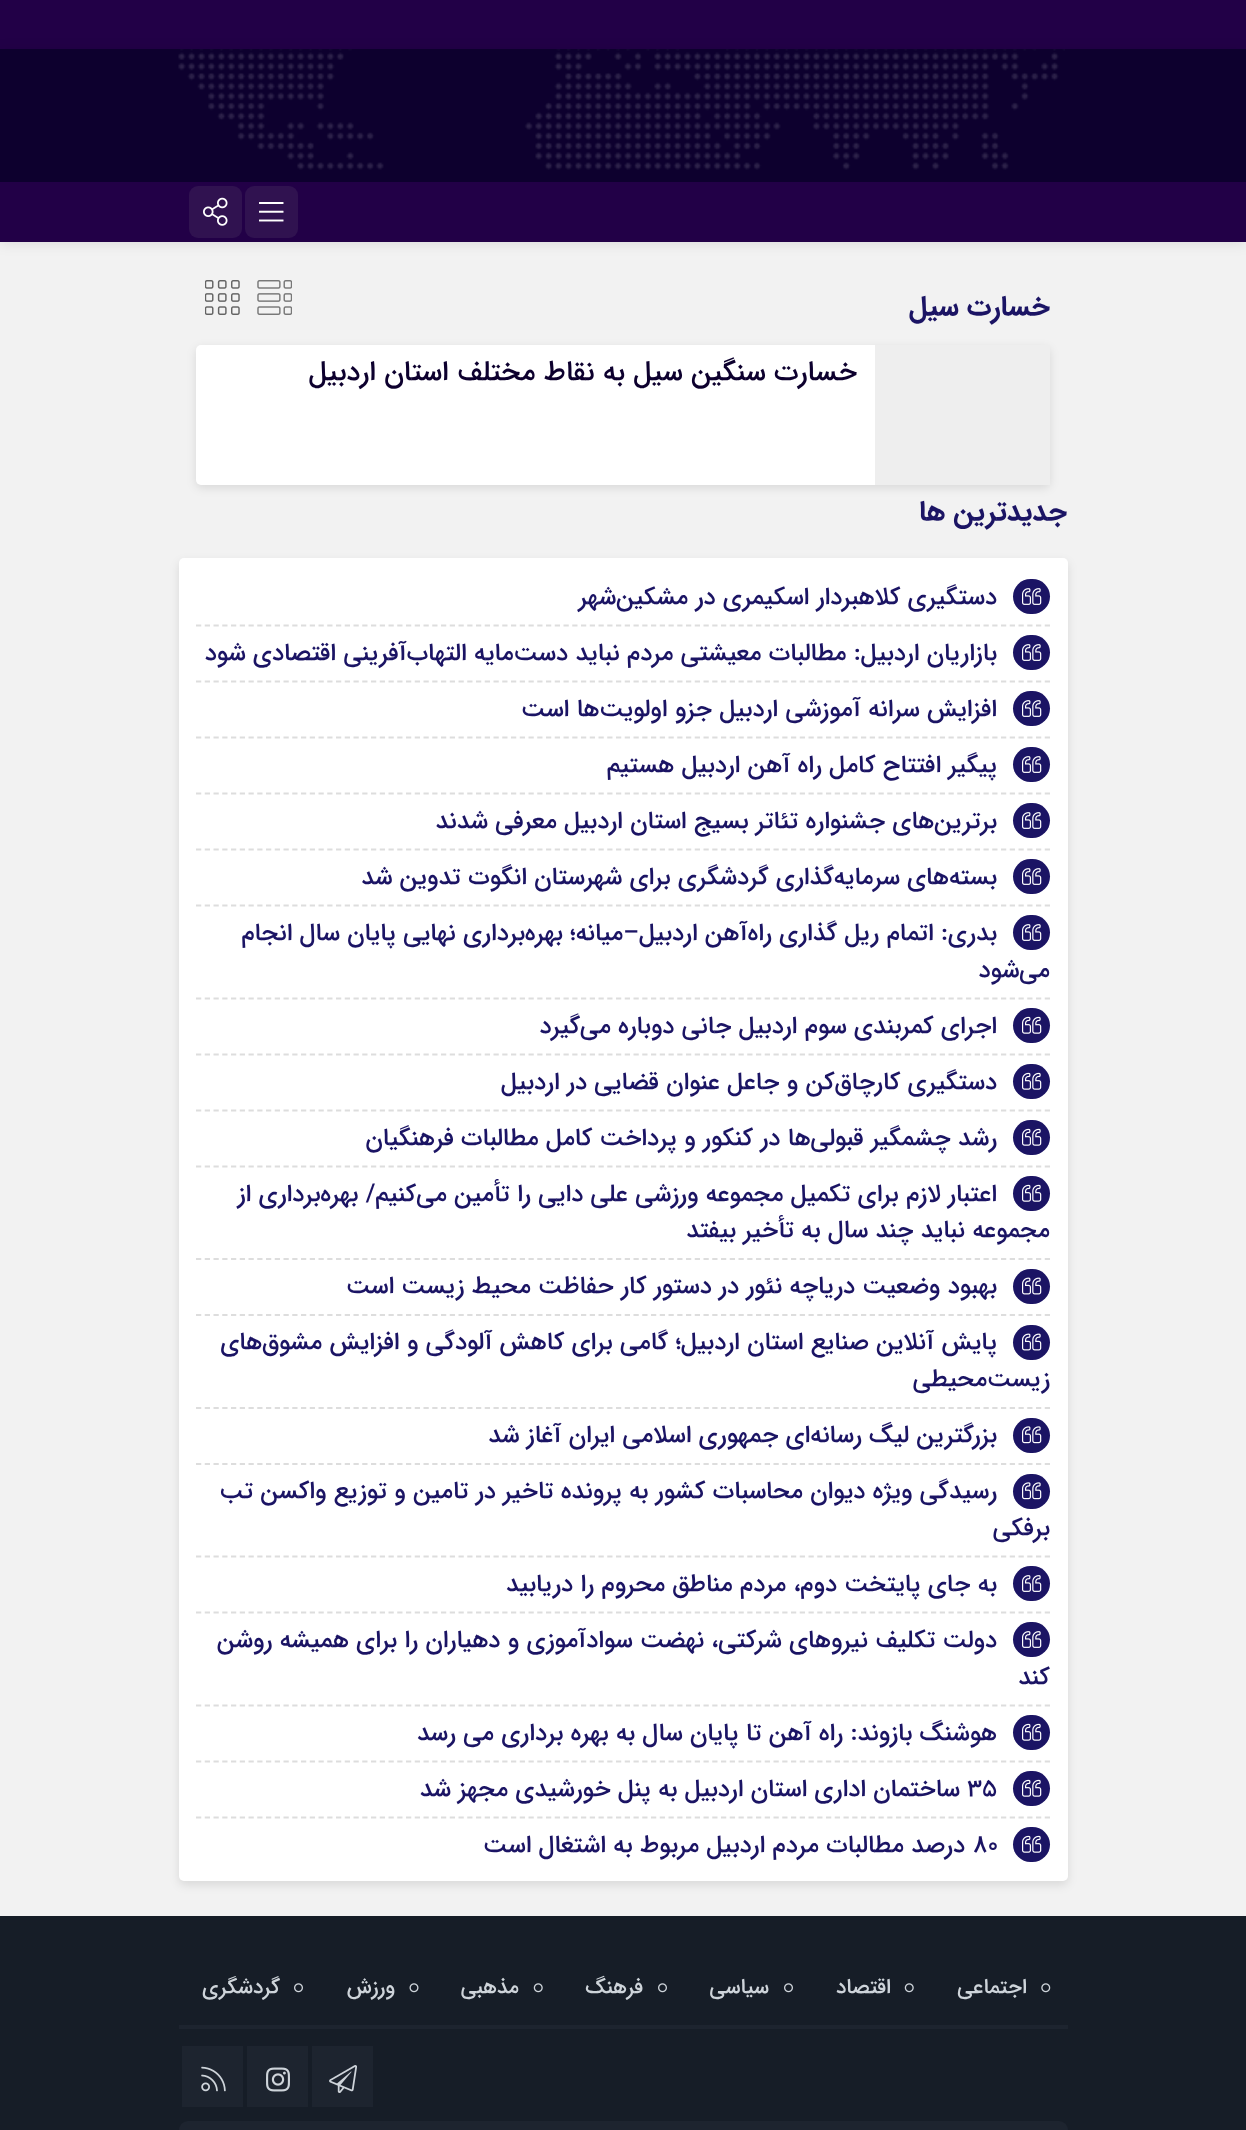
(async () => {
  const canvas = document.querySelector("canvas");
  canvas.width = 1246;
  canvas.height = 2130;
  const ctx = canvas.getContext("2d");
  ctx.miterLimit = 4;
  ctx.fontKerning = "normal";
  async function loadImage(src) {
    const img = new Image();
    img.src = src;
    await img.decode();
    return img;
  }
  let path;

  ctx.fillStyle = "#f2f2f2";
  ctx.fillRect(0, 0, 1246, 2130);
  ctx.fillStyle = "#220047";
  ctx.fillRect(0, 0, 1246, 49);
  ctx.fillStyle = "rgba(0, 0, 0, 0.1)";
  ctx.filter = "blur(7px)";
  ctx.beginPath();
  ctx.rect(0, 51, 1246, 192);
  ctx.fill();
  ctx.filter = "none";
  ctx.fillStyle = "#0d002e";
  ctx.fillRect(0, 49, 1246, 133);
  ctx.drawImage(await loadImage("img/1.png"), 178, 49, 887, 121);
  ctx.fillStyle = "#220047";
  ctx.fillRect(0, 182, 1246, 60);
  ctx.fillStyle = "#301250";
  ctx.beginPath();
  ctx.roundRect(245, 186, 53, 52, 9);
  ctx.fill();
  ctx.drawImage(await loadImage("img/2.png"), 259, 202, 25, 20);
  ctx.beginPath();
  ctx.roundRect(189, 186, 53, 52, 9);
  ctx.fill();
  ctx.drawImage(await loadImage("img/3.png"), 203, 197, 25, 29);
  ctx.drawImage(await loadImage("img/4.png"), 257, 280, 35, 35);
  ctx.drawImage(await loadImage("img/5.png"), 205, 280, 35, 35);
  ctx.fillStyle = "rgba(0, 0, 0, 0.1)";
  ctx.filter = "blur(5px)";
  ctx.beginPath();
  ctx.roundRect(196, 348, 854, 140, 5);
  ctx.fill();
  ctx.filter = "none";
  ctx.fillStyle = "#ffffff";
  ctx.beginPath();
  ctx.roundRect(196, 345, 854, 140, 5);
  ctx.fill();
  ctx.fillStyle = "#eeeeee";
  ctx.fillRect(875, 345, 175, 140);
  ctx.fillStyle = "rgba(0, 0, 0, 0.1)";
  ctx.filter = "blur(5px)";
  ctx.beginPath();
  ctx.roundRect(179, 562, 889, 1323, 5);
  ctx.fill();
  ctx.filter = "none";
  ctx.fillStyle = "#ffffff";
  ctx.beginPath();
  ctx.roundRect(179, 558, 889, 1323, 5);
  ctx.fill();
  path = new Path2D("M196 625.5H1050");
  ctx.strokeStyle = "#dddddd";
  ctx.lineWidth = 1.8;
  ctx.setLineDash([5.25, 3.5]);
  ctx.stroke(path);
  ctx.fillStyle = "#1b1464";
  ctx.beginPath();
  ctx.roundRect(1013, 579, 37, 35, 17.5);
  ctx.fill();
  ctx.drawImage(await loadImage("img/6.png"), 1022, 588, 20, 17);
  path = new Path2D("M196 681.5H1050");
  ctx.stroke(path);
  ctx.beginPath();
  ctx.roundRect(1013, 635, 37, 35, 17.5);
  ctx.fill();
  ctx.drawImage(await loadImage("img/6.png"), 1022, 644, 20, 17);
  path = new Path2D("M196 737.5H1050");
  ctx.stroke(path);
  ctx.beginPath();
  ctx.roundRect(1013, 691, 37, 35, 17.5);
  ctx.fill();
  ctx.drawImage(await loadImage("img/6.png"), 1022, 700, 20, 17);
  path = new Path2D("M196 793.5H1050");
  ctx.stroke(path);
  ctx.beginPath();
  ctx.roundRect(1013, 747, 37, 35, 17.5);
  ctx.fill();
  ctx.drawImage(await loadImage("img/6.png"), 1022, 756, 20, 17);
  path = new Path2D("M196 849.5H1050");
  ctx.stroke(path);
  ctx.beginPath();
  ctx.roundRect(1013, 803, 37, 35, 17.5);
  ctx.fill();
  ctx.drawImage(await loadImage("img/6.png"), 1022, 812, 20, 17);
  path = new Path2D("M196 905.5H1050");
  ctx.stroke(path);
  ctx.beginPath();
  ctx.roundRect(1013, 859, 37, 35, 17.5);
  ctx.fill();
  ctx.drawImage(await loadImage("img/6.png"), 1022, 868, 20, 17);
  path = new Path2D("M196 998.5H1050");
  ctx.stroke(path);
  ctx.beginPath();
  ctx.roundRect(1013, 915, 37, 35, 17.5);
  ctx.fill();
  ctx.drawImage(await loadImage("img/6.png"), 1022, 924, 20, 17);
  path = new Path2D("M196 1054.5H1050");
  ctx.stroke(path);
  ctx.beginPath();
  ctx.roundRect(1013, 1008, 37, 35, 17.5);
  ctx.fill();
  ctx.drawImage(await loadImage("img/7.png"), 1022, 1016, 20, 18);
  path = new Path2D("M196 1110.5H1050");
  ctx.stroke(path);
  ctx.beginPath();
  ctx.roundRect(1013, 1064, 37, 35, 17.5);
  ctx.fill();
  ctx.drawImage(await loadImage("img/7.png"), 1022, 1072, 20, 18);
  path = new Path2D("M196 1166.5H1050");
  ctx.stroke(path);
  ctx.beginPath();
  ctx.roundRect(1013, 1120, 37, 35, 17.5);
  ctx.fill();
  ctx.drawImage(await loadImage("img/7.png"), 1022, 1128, 20, 18);
  path = new Path2D("M196 1259H1050");
  ctx.stroke(path);
  ctx.beginPath();
  ctx.roundRect(1013, 1176, 37, 35, 17.5);
  ctx.fill();
  ctx.drawImage(await loadImage("img/7.png"), 1022, 1184, 20, 18);
  path = new Path2D("M196 1315H1050");
  ctx.stroke(path);
  ctx.beginPath();
  ctx.roundRect(1013, 1269, 37, 35, 17.5);
  ctx.fill();
  ctx.drawImage(await loadImage("img/8.png"), 1022, 1277, 20, 18);
  path = new Path2D("M196 1408H1050");
  ctx.stroke(path);
  ctx.beginPath();
  ctx.roundRect(1013, 1325, 37, 35, 17.5);
  ctx.fill();
  ctx.drawImage(await loadImage("img/8.png"), 1022, 1333, 20, 18);
  path = new Path2D("M196 1464H1050");
  ctx.stroke(path);
  ctx.beginPath();
  ctx.roundRect(1013, 1418, 37, 35, 17.5);
  ctx.fill();
  ctx.drawImage(await loadImage("img/9.png"), 1022, 1426, 20, 18);
  path = new Path2D("M196 1556.5H1050");
  ctx.stroke(path);
  ctx.beginPath();
  ctx.roundRect(1013, 1474, 37, 35, 17.5);
  ctx.fill();
  ctx.drawImage(await loadImage("img/9.png"), 1022, 1482, 20, 18);
  path = new Path2D("M196 1612.5H1050");
  ctx.stroke(path);
  ctx.beginPath();
  ctx.roundRect(1013, 1566, 37, 35, 17.5);
  ctx.fill();
  ctx.drawImage(await loadImage("img/6.png"), 1022, 1575, 20, 17);
  path = new Path2D("M196 1705.5H1050");
  ctx.stroke(path);
  ctx.beginPath();
  ctx.roundRect(1013, 1622, 37, 35, 17.5);
  ctx.fill();
  ctx.drawImage(await loadImage("img/6.png"), 1022, 1631, 20, 17);
  path = new Path2D("M196 1761.5H1050");
  ctx.stroke(path);
  ctx.beginPath();
  ctx.roundRect(1013, 1715, 37, 35, 17.5);
  ctx.fill();
  ctx.drawImage(await loadImage("img/7.png"), 1022, 1723, 20, 18);
  path = new Path2D("M196 1817.5H1050");
  ctx.stroke(path);
  ctx.beginPath();
  ctx.roundRect(1013, 1771, 37, 35, 17.5);
  ctx.fill();
  ctx.drawImage(await loadImage("img/7.png"), 1022, 1779, 20, 18);
  ctx.beginPath();
  ctx.roundRect(1013, 1827, 37, 35, 17.5);
  ctx.fill();
  ctx.drawImage(await loadImage("img/7.png"), 1022, 1835, 20, 18);
  ctx.fillStyle = "#161d27";
  ctx.fillRect(0, 1916, 1246, 214);
  ctx.fillStyle = "#1d242f";
  ctx.fillRect(179, 2025, 889, 4);
  ctx.drawImage(await loadImage("img/10.png"), 1041, 1983, 10, 10);
  ctx.drawImage(await loadImage("img/11.png"), 904, 1983, 10, 10);
  ctx.drawImage(await loadImage("img/12.png"), 784, 1983, 9, 10);
  ctx.drawImage(await loadImage("img/12.png"), 658, 1983, 9, 10);
  ctx.drawImage(await loadImage("img/11.png"), 533, 1983, 10, 10);
  ctx.drawImage(await loadImage("img/13.png"), 409, 1983, 10, 10);
  ctx.drawImage(await loadImage("img/12.png"), 294, 1983, 9, 10);
  ctx.fillRect(312, 2046, 61, 61);
  ctx.drawImage(await loadImage("img/14.png"), 329, 2065, 28, 28);
  ctx.fillRect(247, 2046, 61, 61);
  ctx.drawImage(await loadImage("img/15.png"), 266, 2067, 24, 25);
  ctx.fillRect(182, 2046, 61, 61);
  ctx.drawImage(await loadImage("img/16.png"), 201, 2066, 25, 26);
  ctx.beginPath();
  ctx.roundRect(179, 2121, 889, 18, 9);
  ctx.fill();
  ctx.direction = "rtl";
  ctx.font = "bold 28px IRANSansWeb";
  ctx.fillStyle = "#1b1464";
  ctx.fillText("خسارت سیل", 1050, 315);
  ctx.font = "500 28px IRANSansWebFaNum";
  ctx.fillStyle = "#0d002e";
  ctx.fillText("خسارت سنگین سیل به نقاط مختلف استان اردبیل", 857, 380);
  ctx.font = "bold 28px IRANSansWeb";
  ctx.fillStyle = "#1b1464";
  ctx.fillText("جديدترين ها", 1067, 520);
  ctx.font = "500 24.5px IRANSansWebFaNum";
  for (const [text, x, y] of [
    ["دستگیری کلاهبردار اسکيمری در مشکین‌شهر", 997, 604],
    ["بازاریان اردبیل: مطالبات معیشتی مردم نباید دست‌مایه التهاب‌آفرینی اقتصادی شود", 997, 660],
    ["افزایش سرانه آموزشی اردبیل جزو اولویت‌ها است", 997, 716],
    ["پیگیر افتتاح کامل راه آهن اردبیل هستیم", 997, 772],
    ["برترین‌های جشنواره تئاتر بسیج استان اردبیل معرفی شدند", 997, 828],
    ["بسته‌های سرمایه‌گذاری گردشگری برای شهرستان انگوت تدوین شد", 997, 884],
    ["بدری: اتمام ریل گذاری راه‌آهن اردبیل–میانه؛ بهره‌برداری نهایی پایان سال انجام", 997, 940],
    ["می‌شود", 1050, 977],
    ["اجرای کمربندی سوم اردبیل جانی دوباره می‌گیرد", 997, 1033],
    ["دستگیری کارچاق‌کن و جاعل عنوان قضایی در اردبیل", 997, 1089],
    ["رشد چشمگیر قبولی‌ها در کنکور و پرداخت کامل مطالبات فرهنگیان", 997, 1145],
    ["اعتبار لازم برای تکمیل مجموعه ورزشی علی دایی را تأمین می‌کنیم/ بهره‌برداری از", 997, 1201],
    ["مجموعه نباید چند سال به تأخیر بیفتد", 1050, 1237],
    ["بهبود وضعیت دریاچه نئور در دستور کار حفاظت محیط زیست است", 997, 1293],
    ["پایش آنلاین صنایع استان اردبیل؛ گامی برای کاهش آلودگی و افزایش مشوق‌های", 997, 1349],
    ["زیست‌محیطی", 1050, 1386],
    ["بزرگترین لیگ رسانه‌ای جمهوری اسلامی ایران آغاز شد", 997, 1442],
    ["رسیدگی ویژه دیوان محاسبات کشور به پرونده تاخیر در تامین و توزیع واکسن تب", 997, 1498],
    ["برفکی", 1050, 1535],
    ["به جای پایتخت دوم، مردم مناطق محروم را دریابید", 997, 1591],
    ["دولت تکلیف نیروهای شرکتی، نهضت سوادآموزی و دهیاران را برای همیشه روشن", 997, 1647],
    ["کند", 1050, 1684],
    ["هوشنگ بازوند: راه آهن تا پایان سال به بهره برداری می رسد", 997, 1740],
  ]) {
    ctx.fillText(text, x, y);
  }
  ctx.direction = "ltr";
  ctx.fillText("۳۵", 967, 1796);
  ctx.direction = "rtl";
  ctx.fillText("ساختمان اداری استان اردبیل به پنل خورشیدی مجهز شد", 960, 1796);
  ctx.direction = "ltr";
  ctx.fillText("۸۰", 973, 1852);
  ctx.direction = "rtl";
  ctx.fillText("درصد مطالبات مردم اردبیل مربوط به اشتغال است", 965, 1852);
  ctx.font = "500 21px IRANSansWebFaNum";
  ctx.fillStyle = "#ced4da";
  for (const [text, x, y] of [
    ["اجتماعی", 1027, 1993],
    ["اقتصاد", 891, 1993],
    ["سیاسی", 769, 1993],
    ["فرهنگ", 643, 1993],
    ["مذهبی", 519, 1993],
    ["ورزش", 395, 1993],
    ["گردشگری", 280, 1993],
  ]) {
    ctx.fillText(text, x, y);
  }
})();
